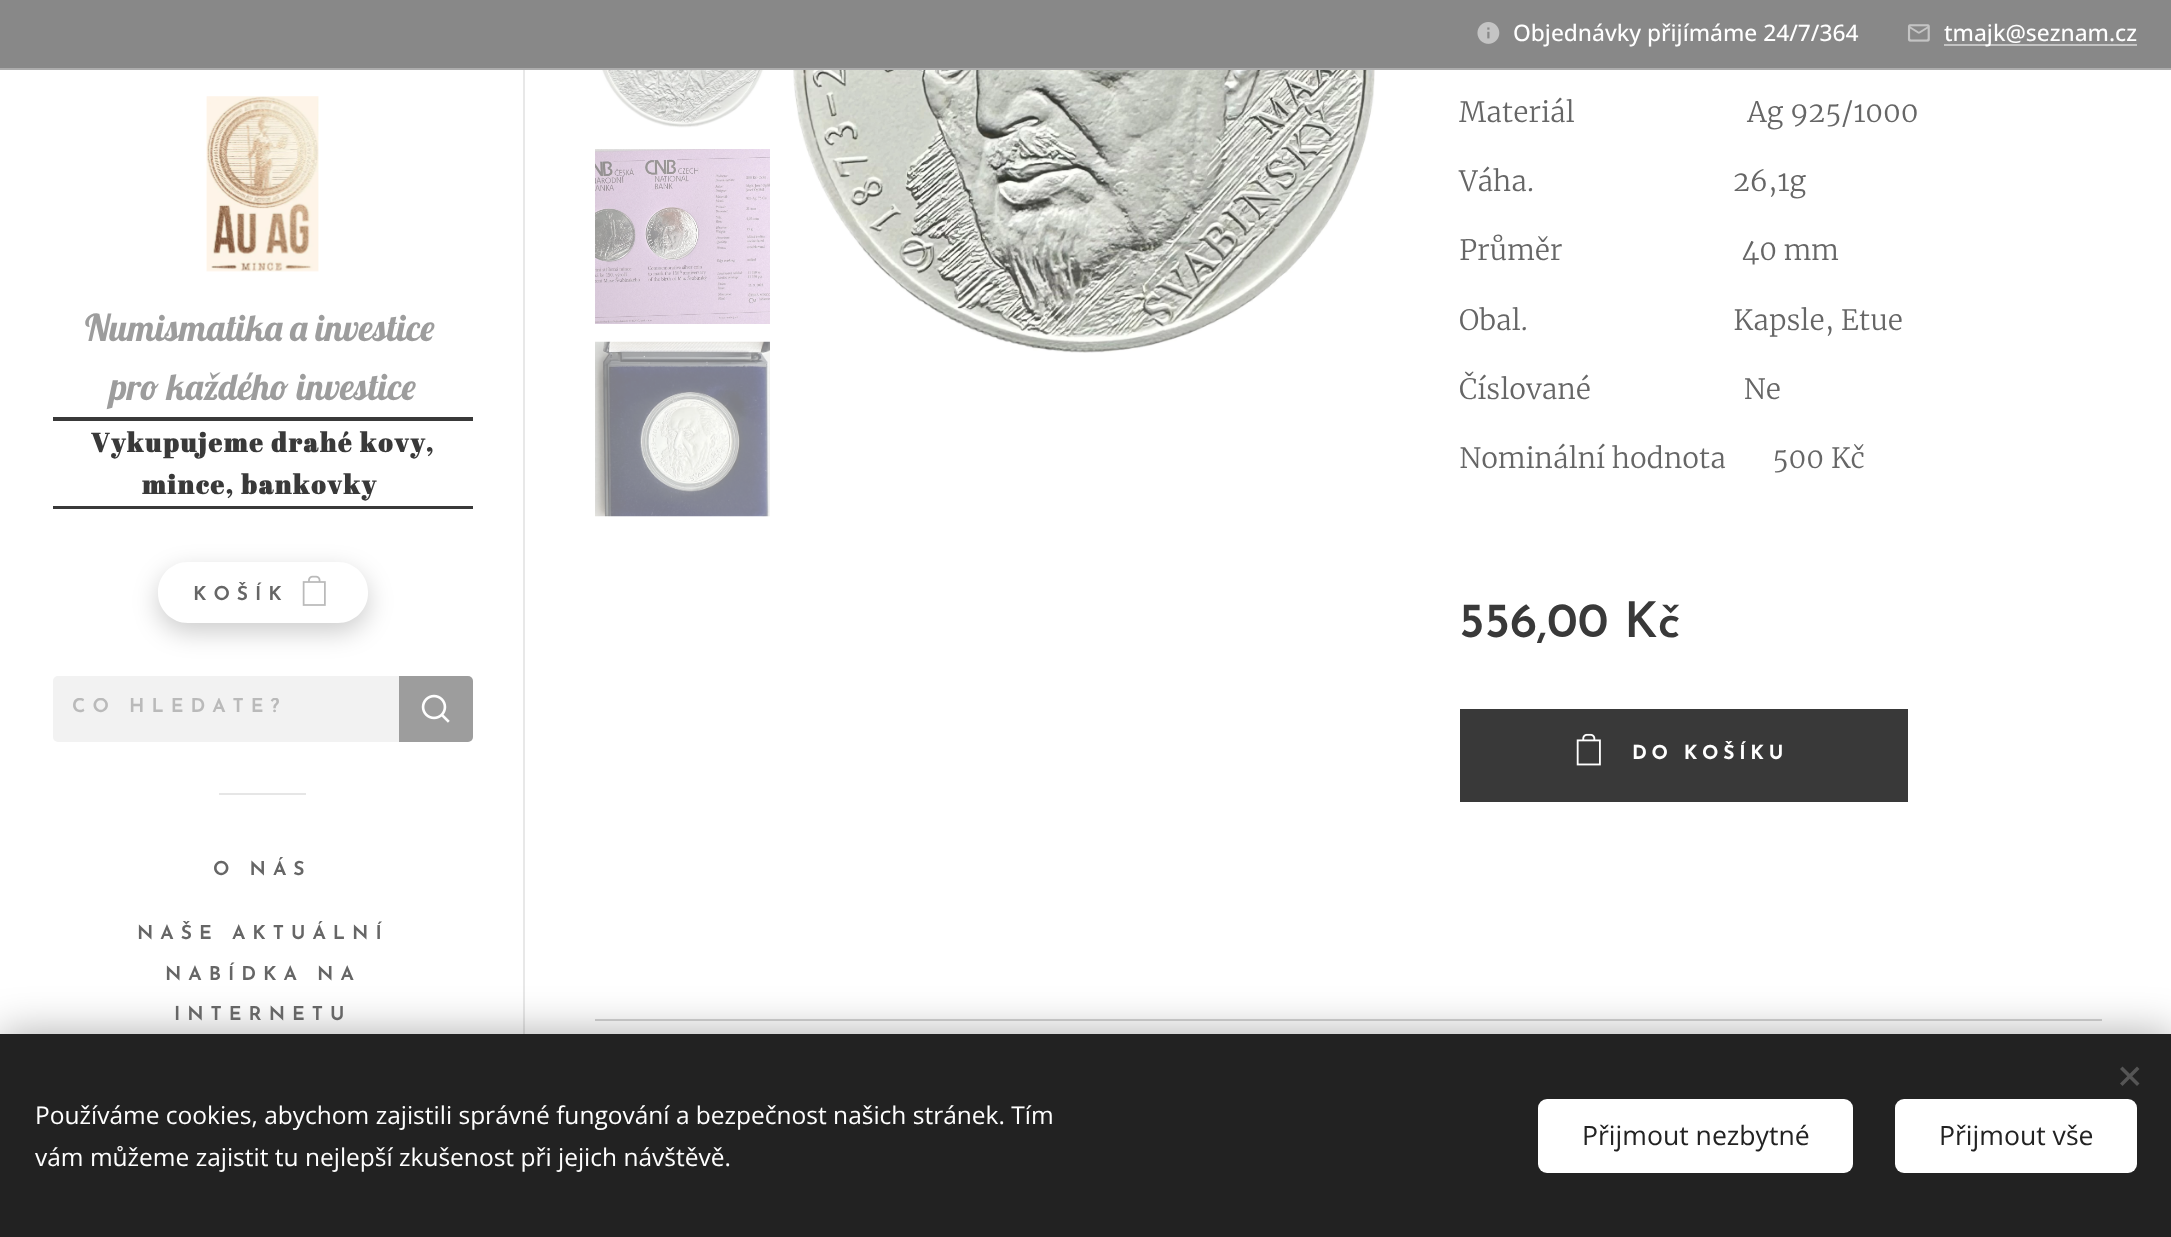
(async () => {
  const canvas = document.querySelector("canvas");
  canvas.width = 2171;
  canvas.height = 1237;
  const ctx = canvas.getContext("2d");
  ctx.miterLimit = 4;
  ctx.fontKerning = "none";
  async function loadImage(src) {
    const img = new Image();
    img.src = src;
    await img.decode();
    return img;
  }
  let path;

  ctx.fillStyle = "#ffffff";
  ctx.fillRect(0, 0, 2171, 1237);
  ctx.fillStyle = "#888888";
  ctx.fillRect(0, 0, 2171, 68);
  ctx.drawImage(await loadImage("img/1.png"), 1477, 22, 23, 22);
  ctx.drawImage(await loadImage("img/2.png"), 1907, 24, 23, 18);
  ctx.fillStyle = "#c4c4c4";
  ctx.fillRect(1944, 44, 193, 2);
  ctx.fillStyle = "#acacac";
  ctx.fillRect(0, 68, 2171, 2);
  ctx.drawImage(await loadImage("img/3.png"), 206, 96, 113, 176);
  ctx.fillStyle = "#393939";
  ctx.fillRect(53, 417, 420, 4);
  ctx.fillRect(53, 506, 420, 3);
  ctx.save();
  path = new Path2D("M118 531H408V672H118ZM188 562H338C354.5 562 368 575.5 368 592V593C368 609.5 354.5 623 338 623H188C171.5 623 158 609.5 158 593V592C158 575.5 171.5 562 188 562Z");
  ctx.clip(path, "evenodd");
  ctx.fillStyle = "rgba(0, 0, 0, 0.2)";
  ctx.filter = "blur(13px)";
  ctx.beginPath();
  ctx.roundRect(158, 571, 210, 61, 30);
  ctx.fill();
  ctx.filter = "none";
  ctx.restore();
  ctx.drawImage(await loadImage("img/4.png"), 302, 575, 24, 31);
  ctx.fillStyle = "#f2f2f2";
  ctx.beginPath();
  ctx.roundRect(53, 676, 346, 66, [5, 0, 0, 5]);
  ctx.fill();
  ctx.fillStyle = "#9d9d9d";
  ctx.beginPath();
  ctx.roundRect(399, 676, 74, 66, [0, 5, 5, 0]);
  ctx.fill();
  ctx.drawImage(await loadImage("img/5.png"), 421, 694, 29, 29);
  ctx.fillStyle = "#e6e6e6";
  ctx.fillRect(219, 793, 87, 2);
  ctx.fillStyle = "#e8e8e8";
  ctx.fillRect(523, 70, 2, 964);
  ctx.drawImage(await loadImage("img/6.png"), 597, 70, 171, 58);
  ctx.drawImage(await loadImage("img/7.png"), 595, 149, 175, 175);
  ctx.drawImage(await loadImage("img/8.png"), 595, 341, 175, 176);
  ctx.drawImage(await loadImage("img/9.png"), 793, 70, 582, 283);
  ctx.fillStyle = "#393939";
  ctx.fillRect(1460, 709, 448, 93);
  ctx.drawImage(await loadImage("img/10.png"), 1576, 733, 25, 33);
  ctx.fillStyle = "#d4d4d4";
  ctx.fillRect(595, 1019, 1507, 2);
  ctx.fillStyle = "rgba(0, 0, 0, 0.33)";
  ctx.filter = "blur(22px)";
  ctx.beginPath();
  ctx.rect(0, 1034, 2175, 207);
  ctx.fill();
  ctx.filter = "none";
  ctx.fillStyle = "#222222";
  ctx.fillRect(0, 1034, 2171, 203);
  ctx.fillStyle = "#555555";
  path = new Path2D("M2120 1083.5L2137 1066.5L2139.5 1069L2122.5 1086Z");
  ctx.fill(path);
  path = new Path2D("M2122.5 1066.5L2139.5 1083.5L2137 1086L2120 1069Z");
  ctx.fill(path);
  ctx.fillStyle = "#ffffff";
  ctx.beginPath();
  ctx.roundRect(1538, 1099, 315, 74, 9);
  ctx.fill();
  ctx.beginPath();
  ctx.roundRect(1895, 1099, 242, 74, 9);
  ctx.fill();
  ctx.font = "500 22.75px Open Sans";
  ctx.fillText("Objednávky přijímáme 24/7/364", 1513, 41);
  ctx.fillText("tmajk@seznam.cz", 1944, 41);
  ctx.font = "36.75px Lobster";
  ctx.fillStyle = "#9d9d9d";
  ctx.fillText("Numismatika a investice", 85, 341);
  ctx.fillText("pro každého investice", 110, 400);
  ctx.letterSpacing = "1.75px";
  ctx.font = "bold 26.6px Abril Fatface";
  ctx.fillStyle = "#393939";
  ctx.fillText("Vykupujeme drahé kovy,", 91, 452);
  ctx.fillText("mince, bankovky", 142, 494);
  ctx.letterSpacing = "7px";
  ctx.font = "600 19.25px 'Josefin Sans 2'";
  ctx.fillStyle = "#666666";
  ctx.fillText("KOŠÍK", 193, 600);
  ctx.save();
  ctx.beginPath();
  ctx.rect(72, 698, 310, 20);
  ctx.clip();
  ctx.fillStyle = "#bababa";
  ctx.fillText("CO HLEDÁTE?", 72, 712);
  ctx.restore();
  for (const [text, x, y] of [
    ["O NÁS", 213, 875],
    ["NAŠE AKTUÁLNÍ", 137, 939],
    ["NABÍDKA NA", 165, 980],
    ["INTERNETU", 174, 1020],
  ]) {
    ctx.fillText(text, x, y);
  }
  ctx.letterSpacing = "0px";
  ctx.font = "300 28px Merriweather";
  for (const [text, x, y] of [
    ["Materiál                          Ag 925/1000", 1459, 122],
    ["Váha.                              26,1g", 1459, 191],
    ["Průměr                           40 mm", 1459, 260],
    ["Obal.                               Kapsle, Etue", 1459, 330],
    ["Číslované                       Ne", 1459, 399],
    ["Nominální hodnota       500 Kč", 1459, 468],
  ]) {
    ctx.fillText(text, x, y);
  }
  ctx.font = "600 49px Josefin Sans";
  ctx.fillStyle = "#393939";
  ctx.fillText("556,00 Kč", 1459, 637);
  ctx.letterSpacing = "4.75px";
  ctx.font = "bold 19.25px Josefin Sans";
  ctx.fillStyle = "#ffffff";
  ctx.fillText("DO KOŠÍKU", 1632, 759);
  ctx.letterSpacing = "0px";
  ctx.font = "24.5px Open Sans";
  ctx.fillText("Používáme cookies, abychom zajistili správné fungování a bezpečnost našich stránek. Tím", 35, 1124);
  ctx.fillText("vám můžeme zajistit tu nejlepší zkušenost při jejich návštěvě.", 35, 1166);
  ctx.font = "26.6px Open Sans";
  ctx.fillStyle = "#222222";
  ctx.fillText("Přijmout nezbytné", 1582, 1145);
  ctx.fillText("Přijmout vše", 1939, 1145);
})();
